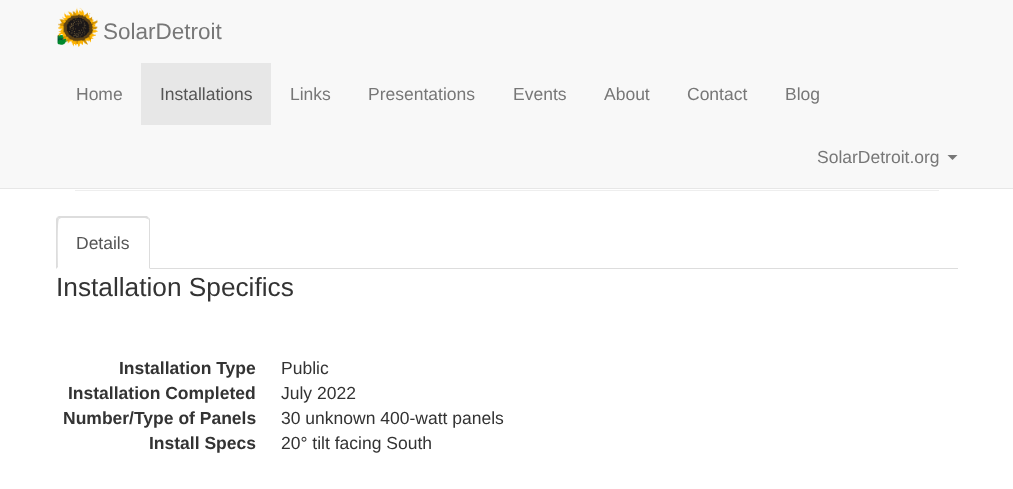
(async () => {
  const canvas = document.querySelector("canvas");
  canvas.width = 1013;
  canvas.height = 489;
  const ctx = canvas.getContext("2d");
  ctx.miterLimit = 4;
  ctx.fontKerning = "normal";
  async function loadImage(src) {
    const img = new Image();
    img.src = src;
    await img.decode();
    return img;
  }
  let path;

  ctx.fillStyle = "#ffffff";
  ctx.fillRect(0, 0, 1013, 489);
  ctx.fillStyle = "#f8f8f8";
  ctx.fillRect(0, 0, 1013, 188);
  ctx.fillStyle = "#e7e7e7";
  ctx.fillRect(0, 188, 1013, 1);
  ctx.drawImage(await loadImage("img/1.png"), 57, 7, 41, 40);
  ctx.fillRect(141, 63, 130, 62);
  ctx.fillStyle = "#777777";
  path = new Path2D("M947.5 155H957.5L952.5 160Z");
  ctx.fill(path);
  ctx.fillStyle = "#eeeeee";
  ctx.fillRect(75, 190, 864, 1);
  ctx.fillStyle = "#dddddd";
  ctx.fillRect(150, 268, 808, 1);
  path = new Path2D("M61 218L59 219L57 217L59 216H147L149 218L148 219L145 218Z");
  ctx.fill(path);
  path = new Path2D("M150 269V221C150 220 150 218 149 218L148 219L149 220V268Z");
  ctx.fill(path);
  path = new Path2D("M56 269V219L57 217L59 219C57 221 58 261 58 267Z");
  ctx.fill(path);
  ctx.font = "22.5px Liberation Sans";
  ctx.fillStyle = "#777777";
  ctx.fillText("SolarDetroit", 103, 39);
  ctx.font = "17.5px Liberation Sans";
  ctx.fillText("Home", 76, 100);
  ctx.fillStyle = "#555555";
  ctx.fillText("Installations", 160, 100);
  ctx.fillStyle = "#777777";
  for (const [text, x, y] of [
    ["Links", 290, 100],
    ["Presentations", 368, 100],
    ["Events", 513, 100],
    ["About", 604, 100],
    ["Contact", 687, 100],
    ["Blog", 785, 100],
    ["SolarDetroit.org", 817, 163],
  ]) {
    ctx.fillText(text, x, y);
  }
  ctx.fillStyle = "#555555";
  ctx.fillText("Details", 76, 249);
  ctx.font = "26.25px Liberation Sans";
  ctx.fillStyle = "#333333";
  ctx.fillText("Installation Specifics", 56, 296);
  ctx.font = "bold 17.5px Liberation Sans";
  ctx.fillText("Installation Type", 119, 374);
  ctx.font = "17.5px Liberation Sans";
  ctx.fillText("Public", 281, 374);
  ctx.font = "bold 17.5px Liberation Sans";
  ctx.fillText("Installation Completed", 68, 399);
  ctx.font = "17.5px Liberation Sans";
  ctx.fillText("July 2022", 281, 399);
  ctx.font = "bold 17.5px Liberation Sans";
  ctx.fillText("Number/Type of Panels", 63, 424);
  ctx.font = "17.5px Liberation Sans";
  ctx.fillText("30 unknown 400-watt panels", 281, 424);
  ctx.font = "bold 17.5px Liberation Sans";
  ctx.fillText("Install Specs", 149, 449);
  ctx.font = "17.5px Liberation Sans";
  ctx.fillText("20° tilt facing South", 281, 449);
})();
